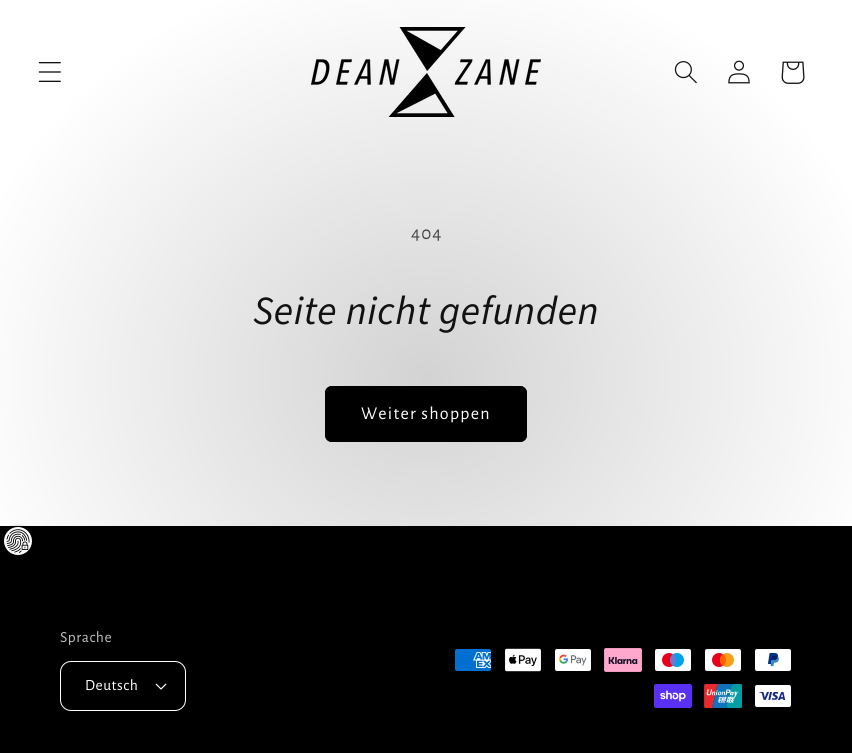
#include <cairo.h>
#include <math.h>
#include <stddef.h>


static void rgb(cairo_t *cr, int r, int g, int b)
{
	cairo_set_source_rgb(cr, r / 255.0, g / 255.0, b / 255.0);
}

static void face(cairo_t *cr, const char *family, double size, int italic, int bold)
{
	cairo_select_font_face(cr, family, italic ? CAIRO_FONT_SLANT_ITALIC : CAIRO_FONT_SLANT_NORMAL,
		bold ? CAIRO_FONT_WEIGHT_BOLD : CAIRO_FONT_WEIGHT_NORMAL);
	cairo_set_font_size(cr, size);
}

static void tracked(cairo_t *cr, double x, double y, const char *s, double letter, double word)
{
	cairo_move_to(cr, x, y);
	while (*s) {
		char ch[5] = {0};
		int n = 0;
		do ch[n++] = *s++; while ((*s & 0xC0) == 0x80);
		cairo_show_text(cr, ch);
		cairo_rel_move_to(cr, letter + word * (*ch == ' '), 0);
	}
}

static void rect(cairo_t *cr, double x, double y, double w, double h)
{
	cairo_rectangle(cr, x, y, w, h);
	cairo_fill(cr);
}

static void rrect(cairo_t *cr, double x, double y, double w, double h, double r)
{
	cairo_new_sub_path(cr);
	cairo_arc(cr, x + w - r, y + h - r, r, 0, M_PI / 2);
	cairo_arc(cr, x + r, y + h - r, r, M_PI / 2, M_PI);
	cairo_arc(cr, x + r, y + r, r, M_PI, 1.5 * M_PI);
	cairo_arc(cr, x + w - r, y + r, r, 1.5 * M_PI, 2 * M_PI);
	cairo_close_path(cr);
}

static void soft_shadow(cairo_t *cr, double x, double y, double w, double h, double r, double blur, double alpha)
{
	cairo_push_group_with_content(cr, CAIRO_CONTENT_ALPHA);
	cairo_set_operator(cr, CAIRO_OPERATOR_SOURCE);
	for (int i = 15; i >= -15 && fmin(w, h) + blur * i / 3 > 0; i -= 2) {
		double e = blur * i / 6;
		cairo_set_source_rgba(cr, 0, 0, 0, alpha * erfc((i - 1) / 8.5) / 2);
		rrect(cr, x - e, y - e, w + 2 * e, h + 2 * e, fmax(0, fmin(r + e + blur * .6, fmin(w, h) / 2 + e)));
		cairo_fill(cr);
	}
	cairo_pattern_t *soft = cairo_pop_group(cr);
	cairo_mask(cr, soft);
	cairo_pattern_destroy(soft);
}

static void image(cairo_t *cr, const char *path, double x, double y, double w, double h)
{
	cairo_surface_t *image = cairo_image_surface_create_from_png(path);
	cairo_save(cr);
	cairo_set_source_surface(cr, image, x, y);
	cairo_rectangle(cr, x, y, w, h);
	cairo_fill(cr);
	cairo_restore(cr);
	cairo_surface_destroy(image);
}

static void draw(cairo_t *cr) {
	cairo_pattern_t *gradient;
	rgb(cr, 255, 255, 255);
	cairo_paint(cr);
	gradient = cairo_pattern_create_radial(0, 0, 0, 0, 0, 1);
	cairo_pattern_set_matrix(gradient, &(cairo_matrix_t){1.0 / 602, 0, 0, 1.0 / 532, -1.0 * 426 / 602, -1.0 * 377 / 532});
	cairo_pattern_add_color_stop_rgba(gradient, 0, 0.827, 0.827, 0.827, 1);
	cairo_pattern_add_color_stop_rgba(gradient, 0.79, 1, 1, 1, 1);
	cairo_pattern_add_color_stop_rgba(gradient, 0.97, 1, 1, 1, 1);
	cairo_set_source(cr, gradient);
	cairo_pattern_destroy(gradient);
	rect(cr, 0, 0, 852, 526);
	image(cr, "image0.png", 38, 62, 23, 20);
	image(cr, "image1.png", 311, 27, 230, 90);
	image(cr, "image2.png", 674, 61, 23, 23);
	image(cr, "image3.png", 728, 60, 22, 24);
	image(cr, "image4.png", 781, 61, 24, 23);
	face(cr, "Alegreya Sans", 19, 0, 0);
	rgb(cr, 70, 70, 70);
	tracked(cr, 411, 239, "404", 1, 0);
	face(cr, "Source Sans Pro", 40, 1, 0);
	rgb(cr, 18, 18, 18);
	tracked(cr, 253, 324, "Seite nicht gefunden", 0.6, 0);
	rgb(cr, 0, 0, 0);
	rrect(cr, 325, 386, 202, 56, 7);
	cairo_fill(cr);
	rrect(cr, 325.5, 386.5, 201, 55, 6.5);
	cairo_set_line_width(cr, 1);
	cairo_stroke(cr);
	face(cr, "Alegreya Sans", 18, 0, 0);
	rgb(cr, 255, 255, 255);
	tracked(cr, 361, 419, "Weiter shoppen", 1.25, 0);
	rgb(cr, 0, 0, 0);
	rect(cr, 0, 526, 852, 227);
	rgb(cr, 0, 0, 0);
	soft_shadow(cr, 4, 527, 28, 28, 14, 2, 0.4);
	rgb(cr, 255, 255, 255);
	cairo_arc(cr, 18, 541, 14, 0, 2 * M_PI);
	cairo_fill(cr);
	image(cr, "image5.png", 6, 529, 24, 24);
	face(cr, "Alegreya Sans", 15.5, 0, 0);
	rgb(cr, 191, 191, 191);
	tracked(cr, 60, 642, "Sprache", 0.5, 0);
	image(cr, "image6.png", 155, 683, 12, 7);
	rrect(cr, 60.5, 661.5, 125, 49, 10.5);
	rgb(cr, 255, 255, 255);
	cairo_stroke(cr);
	tracked(cr, 85, 690, "Deutsch", 0.5, 0);
	image(cr, "image7.png", 455, 649, 36, 22);
	image(cr, "image8.png", 505, 648, 36, 24);
	image(cr, "image9.png", 555, 649, 36, 22);
	image(cr, "image10.png", 604, 648, 38, 24);
	image(cr, "image11.png", 655, 649, 36, 22);
	image(cr, "image12.png", 705, 649, 36, 22);
	image(cr, "image13.png", 755, 649, 36, 22);
	image(cr, "image14.png", 654, 684, 38, 24);
	image(cr, "image15.png", 704, 684, 38, 24);
	image(cr, "image16.png", 755, 685, 36, 22);
}

int main(void) {
	cairo_surface_t *surface = cairo_image_surface_create(CAIRO_FORMAT_RGB24, 852, 753);
	cairo_t *cr = cairo_create(surface);
	cairo_font_options_t *options = cairo_font_options_create();
	cairo_font_options_set_hint_metrics(options, CAIRO_HINT_METRICS_OFF);
	cairo_font_options_set_hint_style(options, CAIRO_HINT_STYLE_NONE);
	cairo_set_font_options(cr, options);
	cairo_set_miter_limit(cr, 4);
	draw(cr);
	cairo_surface_write_to_png(surface, "render.png");
	cairo_font_options_destroy(options);
	cairo_destroy(cr);
	cairo_surface_destroy(surface);
	return 0;
}
